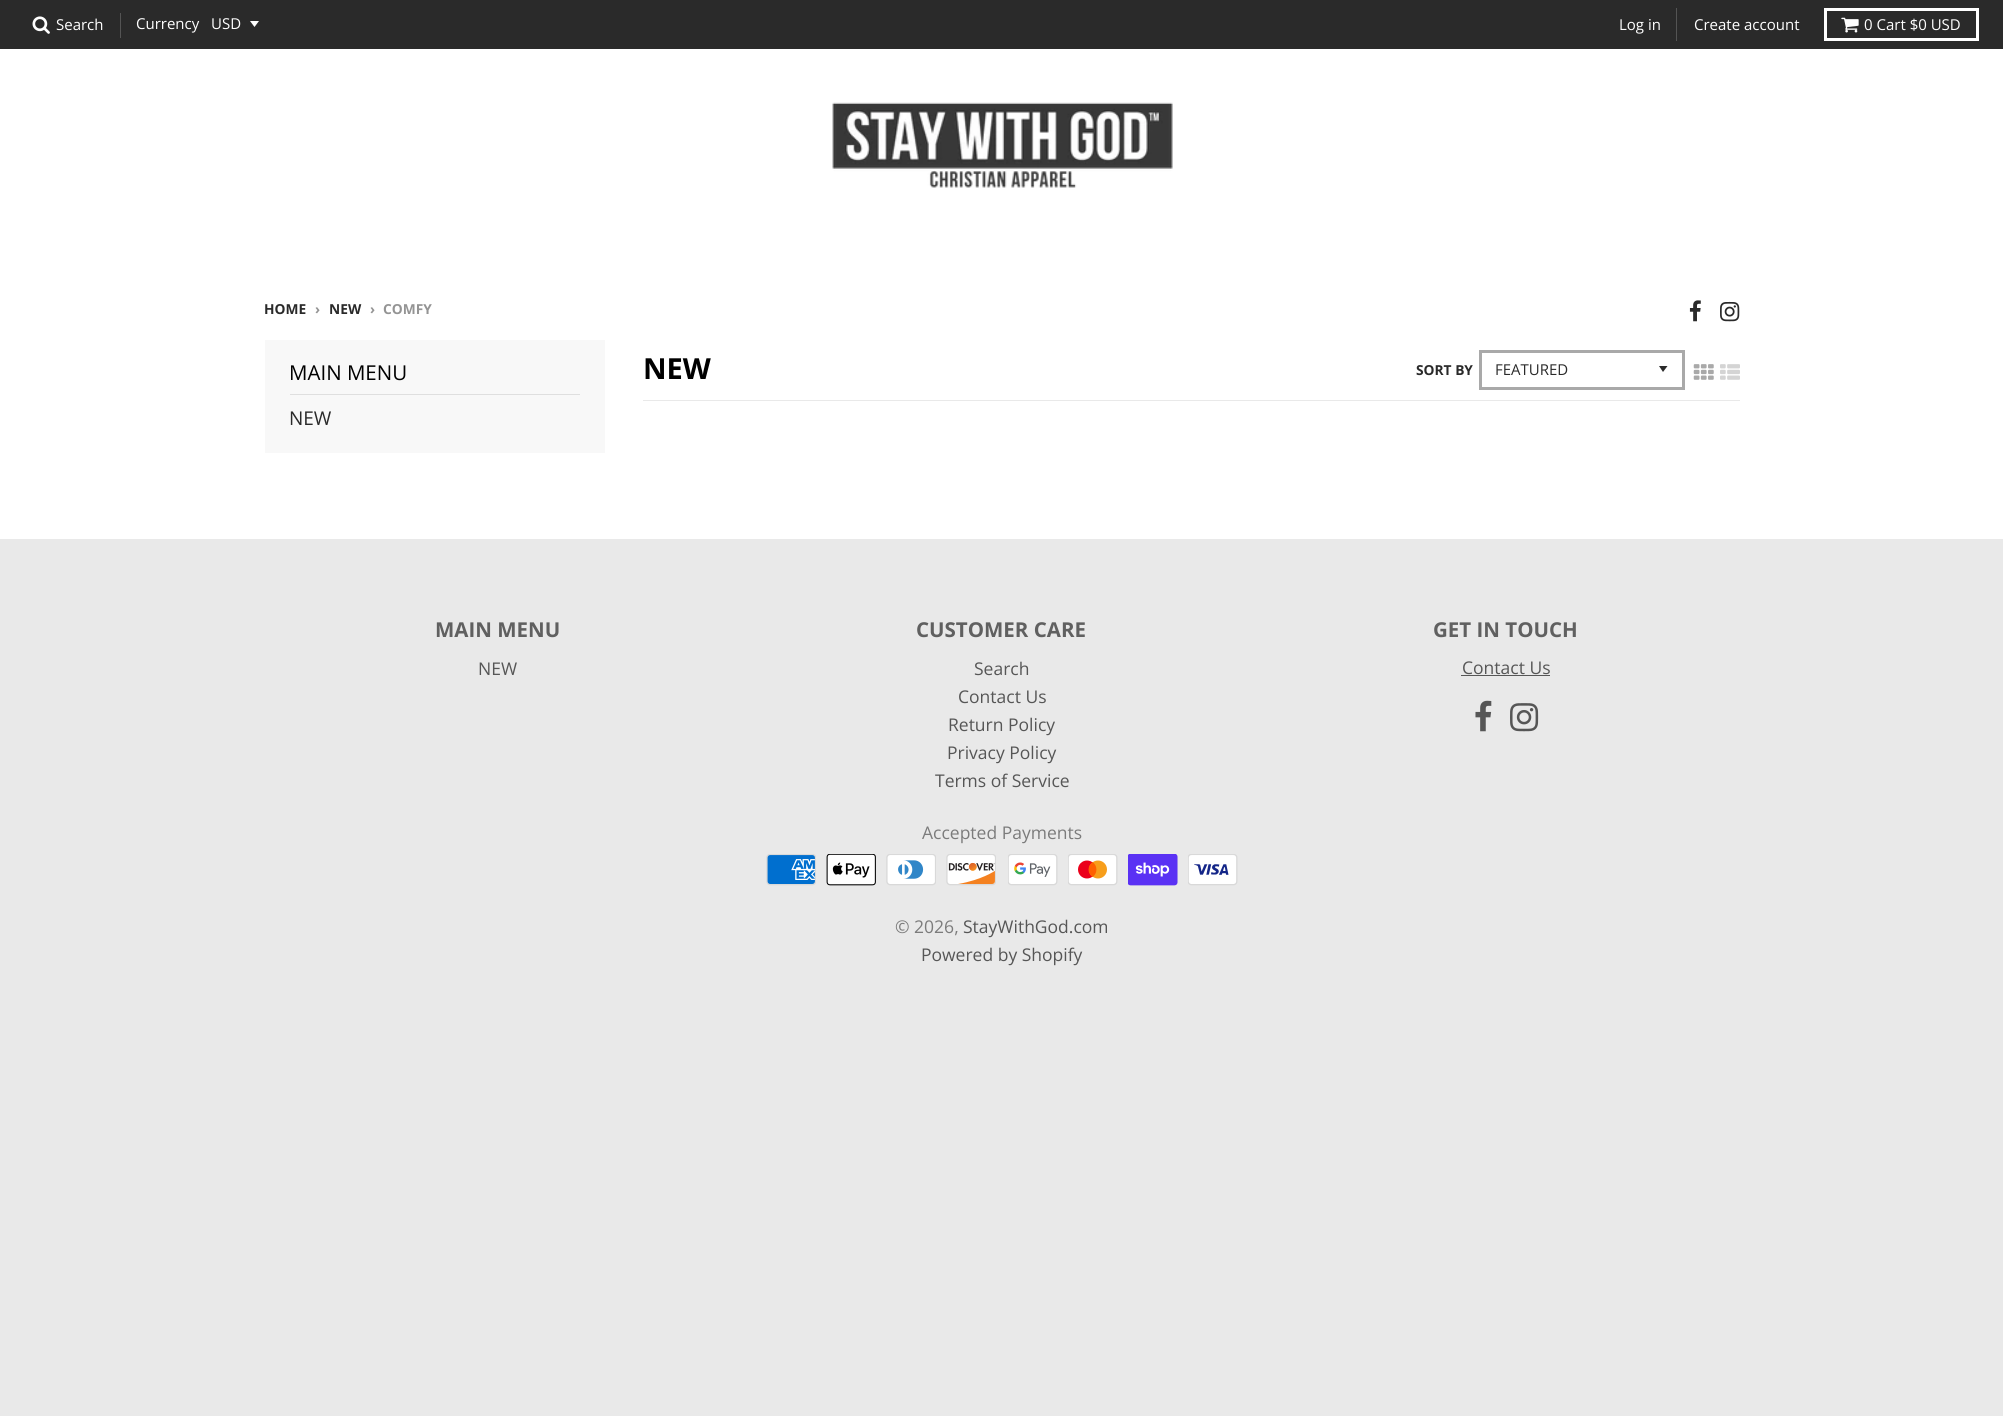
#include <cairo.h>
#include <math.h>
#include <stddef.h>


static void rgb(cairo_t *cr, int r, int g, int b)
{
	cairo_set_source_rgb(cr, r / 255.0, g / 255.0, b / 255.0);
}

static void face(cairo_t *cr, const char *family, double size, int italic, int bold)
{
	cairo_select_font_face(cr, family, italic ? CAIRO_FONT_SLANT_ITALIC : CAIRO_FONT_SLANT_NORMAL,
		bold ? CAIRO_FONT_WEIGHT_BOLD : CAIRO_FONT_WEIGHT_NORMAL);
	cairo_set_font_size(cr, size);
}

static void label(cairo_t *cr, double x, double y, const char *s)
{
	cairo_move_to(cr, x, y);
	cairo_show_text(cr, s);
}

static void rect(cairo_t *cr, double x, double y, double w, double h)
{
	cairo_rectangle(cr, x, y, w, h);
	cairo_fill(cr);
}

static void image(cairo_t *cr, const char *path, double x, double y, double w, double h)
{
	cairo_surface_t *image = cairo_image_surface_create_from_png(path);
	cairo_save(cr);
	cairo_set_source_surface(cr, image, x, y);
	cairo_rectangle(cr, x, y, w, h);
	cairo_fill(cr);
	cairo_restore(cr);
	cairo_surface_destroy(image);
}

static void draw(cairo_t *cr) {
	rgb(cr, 233, 233, 233);
	cairo_paint(cr);
	rgb(cr, 255, 255, 255);
	rect(cr, 0, 49, 2003, 490);
	rgb(cr, 42, 42, 42);
	rect(cr, 0, 0, 2003, 49);
	image(cr, "image0.png", 32, 16, 18, 18);
	face(cr, "Open Sans", 15, 0, 0);
	rgb(cr, 255, 255, 255);
	label(cr, 56, 30, "Search");
	rgb(cr, 84, 84, 84);
	rect(cr, 120, 13, 1, 25);
	rgb(cr, 255, 255, 255);
	label(cr, 136, 29, "Currency");
	cairo_new_path(cr);
	cairo_move_to(cr, 250, 21);
	cairo_line_to(cr, 254.5, 27);
	cairo_line_to(cr, 259, 21);
	cairo_close_path(cr);
	cairo_fill(cr);
	label(cr, 211, 29, "USD");
	rgb(cr, 84, 84, 84);
	rect(cr, 1676, 8, 1, 33);
	rgb(cr, 255, 255, 255);
	label(cr, 1619, 30, "Log in");
	label(cr, 1694, 30, "Create account");
	cairo_rectangle(cr, 1825.5, 9.5, 152, 30);
	cairo_set_line_width(cr, 3);
	cairo_stroke(cr);
	image(cr, "image1.png", 1841, 17, 18, 16);
	label(cr, 1864, 30, "0 Cart $0 USD");
	image(cr, "image2.png", 832, 102, 341, 86);
	face(cr, "Open Sans", 13.75, 0, 1);
	rgb(cr, 42, 42, 42);
	label(cr, 264, 314, "HOME");
	rgb(cr, 148, 148, 148);
	label(cr, 315, 314, "›");
	rgb(cr, 42, 42, 42);
	label(cr, 329, 314, "NEW");
	rgb(cr, 148, 148, 148);
	label(cr, 370, 314, "›");
	label(cr, 383, 314, "COMFY");
	image(cr, "image3.png", 1689, 300, 12, 22);
	image(cr, "image4.png", 1720, 301, 20, 21);
	rgb(cr, 248, 248, 248);
	rect(cr, 265, 340, 340, 113);
	rgb(cr, 223, 223, 223);
	rect(cr, 290, 394, 290, 1);
	face(cr, "Open Sans", 20.5, 0, 0);
	rgb(cr, 0, 0, 0);
	label(cr, 289, 380, "MAIN MENU");
	face(cr, "Open Sans", 19, 0, 0);
	rgb(cr, 42, 42, 42);
	label(cr, 289, 425, "NEW");
	rgb(cr, 233, 233, 233);
	rect(cr, 643, 400, 1097, 1);
	face(cr, "Open Sans", 29, 0, 1);
	rgb(cr, 0, 0, 0);
	label(cr, 643, 379, "NEW");
	face(cr, "Open Sans", 13.75, 0, 1);
	rgb(cr, 42, 42, 42);
	label(cr, 1416, 375, "SORT BY");
	cairo_new_path(cr);
	cairo_move_to(cr, 1659, 366);
	cairo_line_to(cr, 1663, 372);
	cairo_line_to(cr, 1667.5, 366);
	cairo_close_path(cr);
	cairo_fill(cr);
	cairo_rectangle(cr, 1480.5, 351.5, 203, 37);
	rgb(cr, 169, 169, 169);
	cairo_stroke(cr);
	face(cr, "Open Sans", 15, 0, 0);
	rgb(cr, 42, 42, 42);
	label(cr, 1495, 375, "FEATURED");
	image(cr, "image5.png", 1693, 364, 21, 16);
	image(cr, "image6.png", 1720, 364, 20, 16);
	face(cr, "Open Sans", 20.5, 0, 1);
	rgb(cr, 96, 96, 96);
	label(cr, 435, 637, "MAIN MENU");
	face(cr, "Open Sans", 17.5, 0, 0);
	rgb(cr, 86, 86, 86);
	label(cr, 478, 675, "NEW");
	face(cr, "Open Sans", 20.5, 0, 1);
	rgb(cr, 96, 96, 96);
	label(cr, 916, 637, "CUSTOMER CARE");
	face(cr, "Open Sans", 17.5, 0, 0);
	rgb(cr, 86, 86, 86);
	label(cr, 974, 675, "Search");
	label(cr, 958, 703, "Contact Us");
	label(cr, 948, 731, "Return Policy");
	label(cr, 947, 759, "Privacy Policy");
	label(cr, 935, 787, "Terms of Service");
	face(cr, "Open Sans", 20.5, 0, 1);
	rgb(cr, 96, 96, 96);
	label(cr, 1433, 637, "GET IN TOUCH");
	face(cr, "Open Sans", 17.5, 0, 0);
	rgb(cr, 86, 86, 86);
	label(cr, 1462, 674, "Contact Us");
	rect(cr, 1461, 675, 89, 1);
	image(cr, "image7.png", 1475, 700, 17, 32);
	image(cr, "image8.png", 1510, 703, 29, 29);
	rgb(cr, 123, 123, 123);
	label(cr, 922, 839, "Accepted Payments");
	image(cr, "image9.png", 766, 854, 50, 32);
	image(cr, "image10.png", 826, 854, 50, 32);
	image(cr, "image11.png", 886, 854, 50, 32);
	image(cr, "image12.png", 946, 854, 50, 32);
	image(cr, "image13.png", 1008, 854, 50, 32);
	image(cr, "image14.png", 1068, 854, 50, 32);
	image(cr, "image15.png", 1128, 854, 50, 32);
	image(cr, "image16.png", 1188, 854, 50, 32);
	label(cr, 895, 933, "© 2026,");
	rgb(cr, 86, 86, 86);
	label(cr, 963, 933, "StayWithGod.com");
	label(cr, 921, 961, "Powered by Shopify");
}

int main(void) {
	cairo_surface_t *surface = cairo_image_surface_create(CAIRO_FORMAT_RGB24, 2003, 1416);
	cairo_t *cr = cairo_create(surface);
	cairo_font_options_t *options = cairo_font_options_create();
	cairo_font_options_set_hint_metrics(options, CAIRO_HINT_METRICS_OFF);
	cairo_font_options_set_hint_style(options, CAIRO_HINT_STYLE_NONE);
	cairo_set_font_options(cr, options);
	cairo_set_miter_limit(cr, 4);
	draw(cr);
	cairo_surface_write_to_png(surface, "render.png");
	cairo_font_options_destroy(options);
	cairo_destroy(cr);
	cairo_surface_destroy(surface);
	return 0;
}
